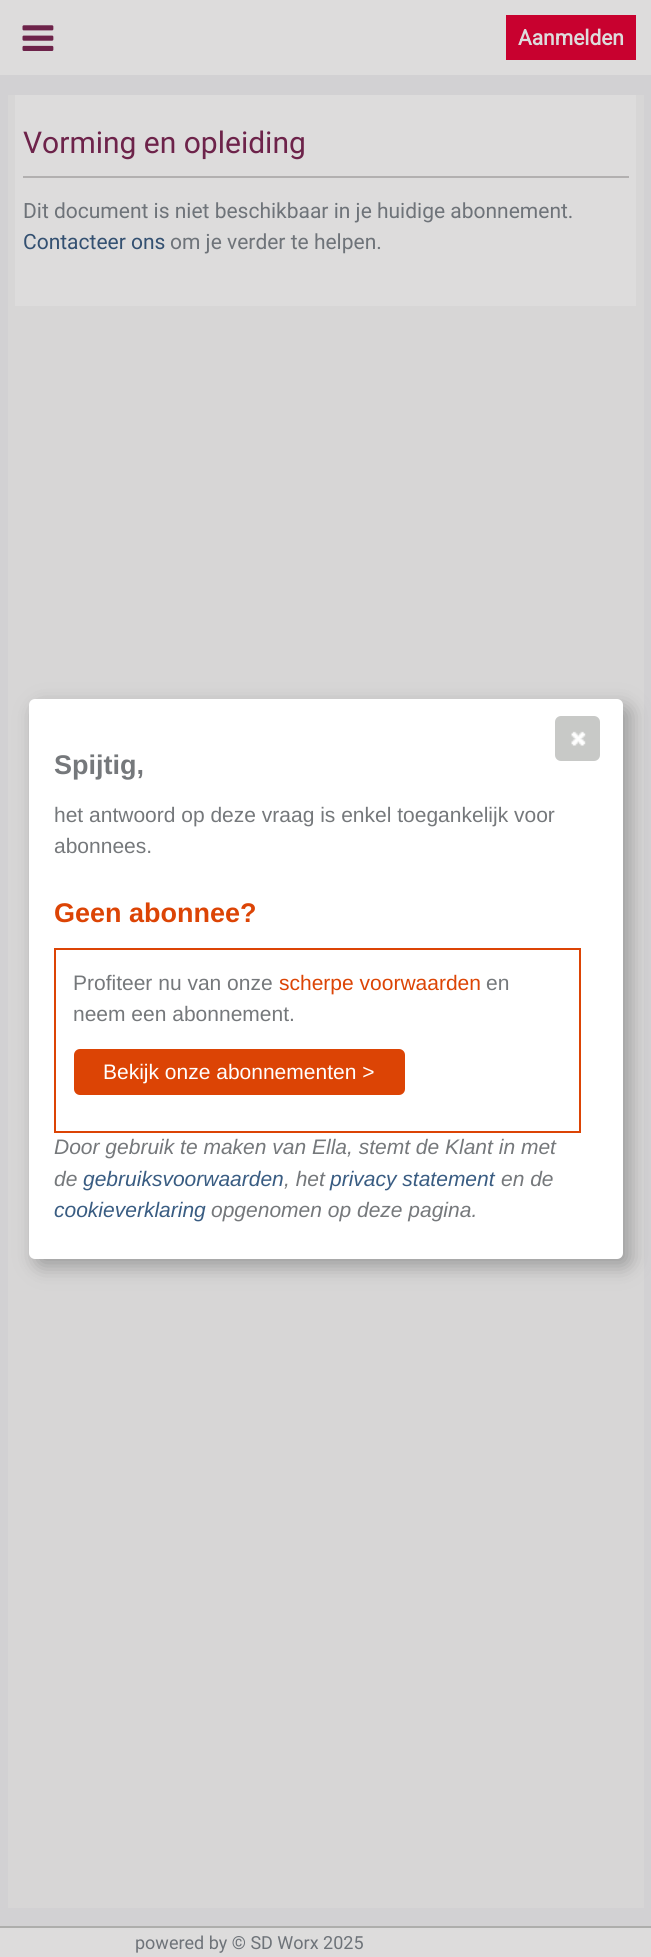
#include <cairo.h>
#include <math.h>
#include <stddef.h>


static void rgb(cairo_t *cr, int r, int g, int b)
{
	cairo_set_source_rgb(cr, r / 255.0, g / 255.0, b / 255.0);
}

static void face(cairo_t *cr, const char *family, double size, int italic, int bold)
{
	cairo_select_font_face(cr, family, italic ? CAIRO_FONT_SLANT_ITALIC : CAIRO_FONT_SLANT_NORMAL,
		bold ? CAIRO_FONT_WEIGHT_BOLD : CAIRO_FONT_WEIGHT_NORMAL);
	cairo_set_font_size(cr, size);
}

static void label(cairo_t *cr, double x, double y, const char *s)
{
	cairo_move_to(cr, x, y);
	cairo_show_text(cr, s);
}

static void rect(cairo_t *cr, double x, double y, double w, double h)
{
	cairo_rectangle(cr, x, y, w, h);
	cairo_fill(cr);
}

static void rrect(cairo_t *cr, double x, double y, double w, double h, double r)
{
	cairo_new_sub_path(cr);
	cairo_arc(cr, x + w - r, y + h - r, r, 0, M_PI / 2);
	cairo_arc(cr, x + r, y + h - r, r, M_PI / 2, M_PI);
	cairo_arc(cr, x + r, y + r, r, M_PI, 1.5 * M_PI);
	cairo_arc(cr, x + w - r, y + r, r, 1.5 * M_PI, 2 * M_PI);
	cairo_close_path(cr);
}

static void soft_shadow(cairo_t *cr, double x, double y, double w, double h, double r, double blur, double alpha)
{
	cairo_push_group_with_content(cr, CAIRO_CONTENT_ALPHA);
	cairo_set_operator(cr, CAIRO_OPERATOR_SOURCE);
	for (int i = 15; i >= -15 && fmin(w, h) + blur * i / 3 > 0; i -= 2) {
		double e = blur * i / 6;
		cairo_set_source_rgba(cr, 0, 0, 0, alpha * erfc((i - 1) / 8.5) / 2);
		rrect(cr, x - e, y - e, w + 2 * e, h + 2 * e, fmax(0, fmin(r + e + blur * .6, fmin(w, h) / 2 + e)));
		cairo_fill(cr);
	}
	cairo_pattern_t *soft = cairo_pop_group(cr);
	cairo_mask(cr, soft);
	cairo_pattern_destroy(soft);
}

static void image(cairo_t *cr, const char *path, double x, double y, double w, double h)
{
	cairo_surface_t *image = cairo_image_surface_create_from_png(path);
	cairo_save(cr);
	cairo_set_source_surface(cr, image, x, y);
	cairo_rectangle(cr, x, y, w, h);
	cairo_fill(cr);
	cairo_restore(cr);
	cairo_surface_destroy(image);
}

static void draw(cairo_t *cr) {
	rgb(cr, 221, 220, 220);
	cairo_paint(cr);
	image(cr, "image0.png", 22, 25, 32, 26);
	rgb(cr, 200, 1, 47);
	rect(cr, 506, 15, 130, 45);
	face(cr, "Roboto", 21, 0, 1);
	rgb(cr, 221, 220, 220);
	label(cr, 518, 45, "Aanmelden");
	rgb(cr, 210, 209, 211);
	rect(cr, 0, 75, 651, 1851);
	rgb(cr, 215, 214, 214);
	rect(cr, 8, 95, 636, 1813);
	rgb(cr, 221, 220, 220);
	rect(cr, 15, 95, 621, 211);
	rgb(cr, 178, 176, 176);
	rect(cr, 23, 176, 606, 2);
	face(cr, "Roboto", 30, 0, 0);
	rgb(cr, 109, 35, 74);
	label(cr, 23, 153, "Vorming en opleiding");
	face(cr, "Roboto", 21, 0, 0);
	rgb(cr, 110, 115, 121);
	label(cr, 23, 218, "Dit document is niet beschikbaar in je huidige abonnement.");
	rgb(cr, 51, 80, 113);
	label(cr, 23, 249, "Contacteer ons");
	rgb(cr, 110, 115, 121);
	label(cr, 170, 249, "om je verder te helpen.");
	rgb(cr, 153, 153, 153);
	soft_shadow(cr, 36, 707, 594, 559, 6, 10, 1);
	rgb(cr, 255, 255, 255);
	rrect(cr, 29, 699, 594, 560, 6);
	cairo_fill(cr);
	rgb(cr, 200, 201, 199);
	rrect(cr, 556, 717, 43, 43, 5);
	cairo_fill_preserve(cr);
	cairo_stroke(cr);
	image(cr, "image1.png", 571, 731, 15, 15);
	face(cr, "Liberation Sans", 27, 0, 1);
	rgb(cr, 117, 120, 123);
	label(cr, 54, 774, "Spijtig,");
	face(cr, "Liberation Sans", 21, 0, 0);
	label(cr, 54, 822, "het antwoord op deze vraag is enkel toegankelijk voor");
	label(cr, 54, 853, "abonnees.");
	face(cr, "Liberation Sans", 27, 0, 1);
	rgb(cr, 220, 68, 5);
	label(cr, 54, 922, "Geen abonnee?");
	cairo_rectangle(cr, 55, 949, 525, 183);
	cairo_stroke(cr);
	face(cr, "Liberation Sans", 21, 0, 0);
	rgb(cr, 117, 120, 123);
	label(cr, 73, 990, "Profiteer nu van onze");
	rgb(cr, 220, 68, 5);
	label(cr, 279, 990, "scherpe voorwaarden");
	rgb(cr, 117, 120, 123);
	label(cr, 486, 990, "en");
	label(cr, 73, 1021, "neem een abonnement.");
	rgb(cr, 220, 68, 5);
	rrect(cr, 75, 1050, 329, 44, 5);
	cairo_fill_preserve(cr);
	cairo_stroke(cr);
	rgb(cr, 255, 255, 255);
	label(cr, 103, 1079, "Bekijk onze abonnementen >");
	face(cr, "Liberation Sans", 21, 1, 0);
	rgb(cr, 117, 120, 123);
	label(cr, 54, 1154, "Door gebruik te maken van Ella, stemt de Klant in met");
	label(cr, 54, 1186, "de");
	rgb(cr, 57, 92, 130);
	label(cr, 83, 1186, "gebruiksvoorwaarden");
	rgb(cr, 117, 120, 123);
	label(cr, 284, 1186, ", het");
	rgb(cr, 57, 92, 130);
	label(cr, 330, 1186, "privacy statement");
	rgb(cr, 117, 120, 123);
	label(cr, 501, 1186, "en de");
	rgb(cr, 57, 92, 130);
	label(cr, 54, 1217, "cookieverklaring");
	rgb(cr, 117, 120, 123);
	label(cr, 211, 1217, "opgenomen op deze pagina.");
	rgb(cr, 174, 174, 172);
	rect(cr, 0, 1926, 651, 2);
	face(cr, "Roboto", 18, 0, 0);
	rgb(cr, 110, 115, 121);
	label(cr, 135, 1949, "powered by © SD Worx 2025");
}

int main(void) {
	cairo_surface_t *surface = cairo_image_surface_create(CAIRO_FORMAT_RGB24, 651, 1957);
	cairo_t *cr = cairo_create(surface);
	cairo_font_options_t *options = cairo_font_options_create();
	cairo_font_options_set_hint_metrics(options, CAIRO_HINT_METRICS_OFF);
	cairo_font_options_set_hint_style(options, CAIRO_HINT_STYLE_NONE);
	cairo_set_font_options(cr, options);
	cairo_set_miter_limit(cr, 4);
	draw(cr);
	cairo_surface_write_to_png(surface, "render.png");
	cairo_font_options_destroy(options);
	cairo_destroy(cr);
	cairo_surface_destroy(surface);
	return 0;
}
